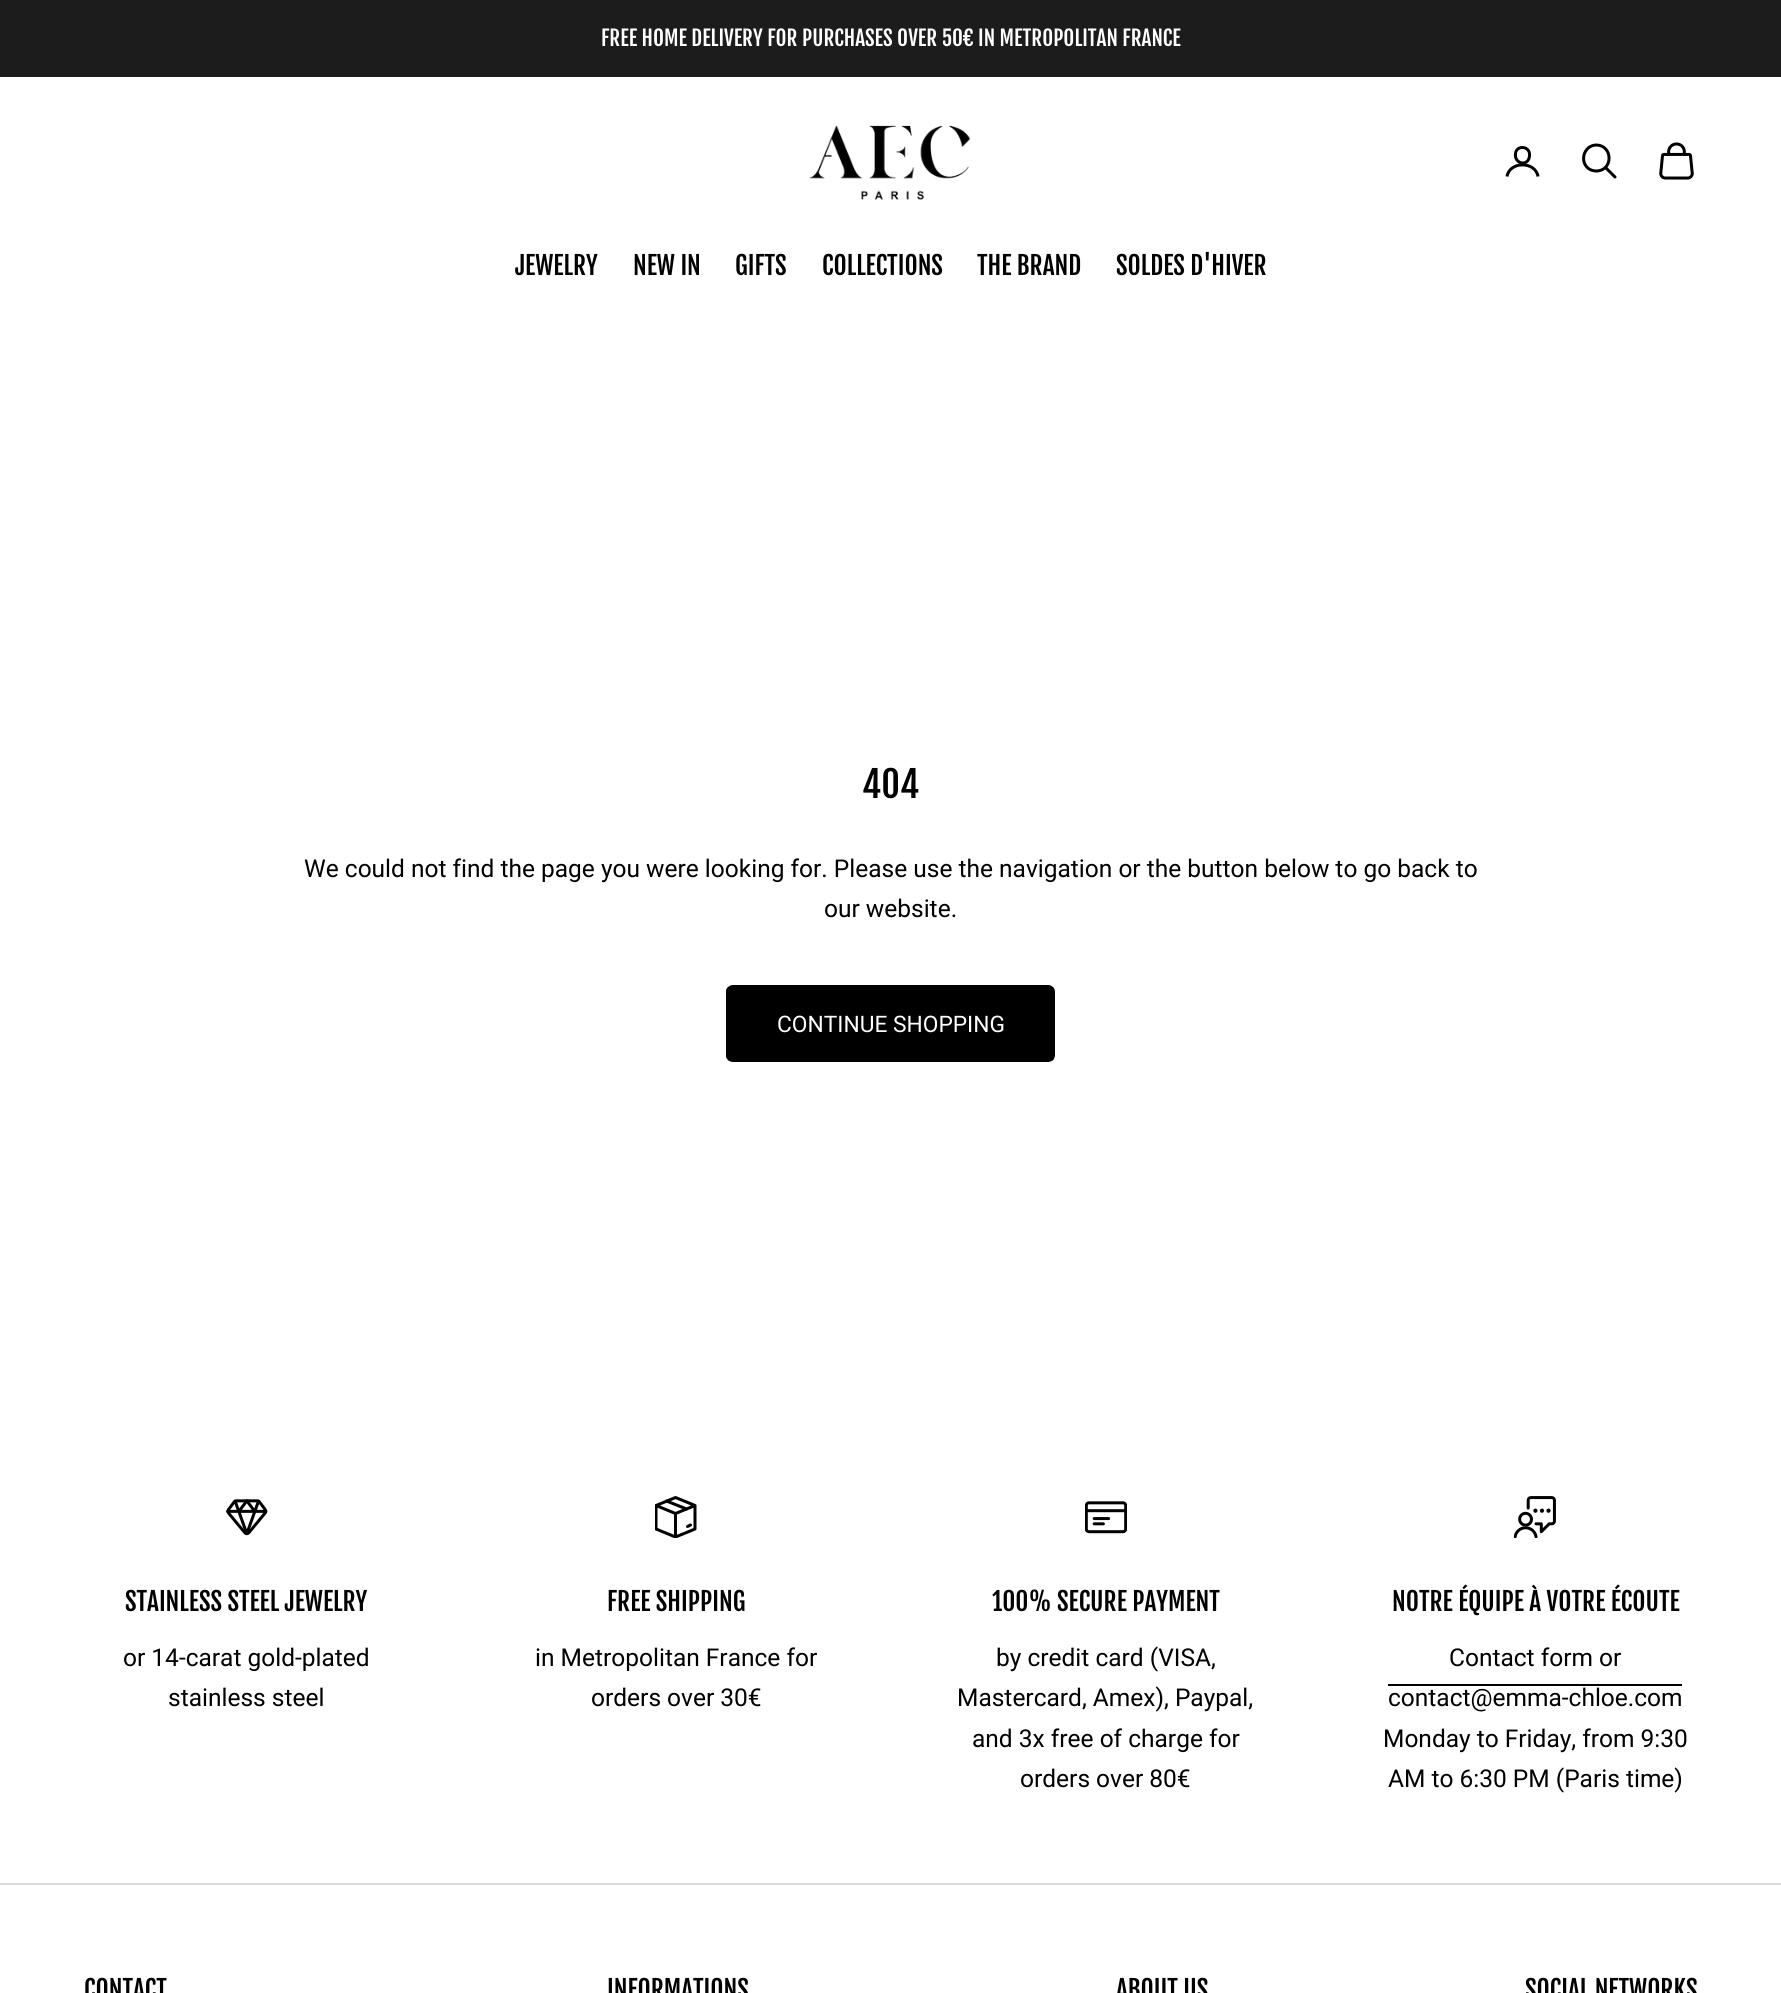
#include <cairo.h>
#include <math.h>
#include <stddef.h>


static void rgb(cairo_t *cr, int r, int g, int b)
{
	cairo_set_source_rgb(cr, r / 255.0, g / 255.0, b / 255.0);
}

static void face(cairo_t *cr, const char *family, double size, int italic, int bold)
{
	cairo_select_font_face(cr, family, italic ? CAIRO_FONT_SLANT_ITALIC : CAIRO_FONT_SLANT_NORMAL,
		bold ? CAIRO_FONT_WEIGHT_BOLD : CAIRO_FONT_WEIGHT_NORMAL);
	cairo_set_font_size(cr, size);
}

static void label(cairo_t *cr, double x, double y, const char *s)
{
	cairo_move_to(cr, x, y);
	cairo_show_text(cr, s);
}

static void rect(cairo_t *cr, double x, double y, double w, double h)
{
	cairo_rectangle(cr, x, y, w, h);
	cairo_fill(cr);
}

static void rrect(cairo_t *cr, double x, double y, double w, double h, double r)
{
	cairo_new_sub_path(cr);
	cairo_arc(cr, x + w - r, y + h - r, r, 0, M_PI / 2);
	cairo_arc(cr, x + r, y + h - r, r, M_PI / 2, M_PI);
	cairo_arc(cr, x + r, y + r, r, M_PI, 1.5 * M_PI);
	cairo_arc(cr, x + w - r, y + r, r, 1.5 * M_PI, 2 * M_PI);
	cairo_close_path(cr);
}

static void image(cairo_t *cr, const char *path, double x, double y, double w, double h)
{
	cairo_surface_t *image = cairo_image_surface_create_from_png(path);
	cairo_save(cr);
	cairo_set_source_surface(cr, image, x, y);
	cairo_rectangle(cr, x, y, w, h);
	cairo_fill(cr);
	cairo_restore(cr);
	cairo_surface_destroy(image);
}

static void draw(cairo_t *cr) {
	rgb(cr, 255, 255, 255);
	cairo_paint(cr);
	rgb(cr, 28, 28, 28);
	rect(cr, 0, 0, 1781, 77);
	face(cr, "Fjalla One", 21, 0, 0);
	rgb(cr, 255, 255, 255);
	label(cr, 601, 46, "FREE HOME DELIVERY FOR PURCHASES OVER 50€ IN METROPOLITAN FRANCE");
	image(cr, "image0.png", 809, 125, 162, 75);
	cairo_new_path(cr);
	cairo_move_to(cr, 1529.5, 155.5);
	cairo_curve_to(cr, 1529, 167, 1514, 164.5, 1515.5, 153.5);
	cairo_curve_to(cr, 1516.5, 144.5, 1530.5, 146, 1529.5, 155.5);
	cairo_close_path(cr);
	rgb(cr, 0, 0, 0);
	cairo_set_line_width(cr, 3);
	cairo_set_line_cap(cr, CAIRO_LINE_CAP_ROUND);
	cairo_set_line_join(cr, CAIRO_LINE_JOIN_ROUND);
	cairo_stroke(cr);
	cairo_new_path(cr);
	cairo_move_to(cr, 1507, 176.5);
	cairo_curve_to(cr, 1509.5, 161, 1535.5, 161, 1538, 176.5);
	cairo_set_line_cap(cr, CAIRO_LINE_CAP_BUTT);
	cairo_set_line_join(cr, CAIRO_LINE_JOIN_MITER);
	cairo_stroke(cr);
	cairo_new_path(cr);
	cairo_move_to(cr, 1596.5, 145);
	cairo_curve_to(cr, 1583.5, 145, 1578.5, 163, 1590, 169.5);
	cairo_curve_to(cr, 1592, 170.5, 1594.5, 171, 1596.5, 171);
	cairo_curve_to(cr, 1613.5, 170.5, 1613, 145.5, 1596.5, 145);
	cairo_close_path(cr);
	cairo_stroke(cr);
	cairo_new_path(cr);
	cairo_move_to(cr, 1606, 168);
	cairo_line_to(cr, 1615, 177);
	cairo_set_line_cap(cr, CAIRO_LINE_CAP_ROUND);
	cairo_stroke(cr);
	image(cr, "image1.png", 1659, 142, 35, 38);
	face(cr, "Fjalla One", 25.25, 0, 0);
	label(cr, 515, 275, "JEWELRY");
	label(cr, 633, 275, "NEW IN");
	label(cr, 735, 275, "GIFTS");
	label(cr, 822, 275, "COLLECTIONS");
	label(cr, 977, 275, "THE BRAND");
	label(cr, 1116, 275, "SOLDES D'HIVER");
	face(cr, "Fjalla One", 36, 0, 0);
	label(cr, 862, 798, "404");
	face(cr, "Roboto", 24.5, 0, 0);
	label(cr, 304, 877, "We could not find the page you were looking for. Please use the navigation or the button below to go back to");
	label(cr, 824, 917, "our website.");
	cairo_save(cr);
	rrect(cr, 726, 985, 329, 77, 7);
	cairo_clip(cr);
	rect(cr, 726, 987, 328, 74);
	cairo_restore(cr);
	rrect(cr, 727, 986, 327, 75, 6);
	cairo_set_line_width(cr, 2);
	cairo_set_line_cap(cr, CAIRO_LINE_CAP_BUTT);
	cairo_stroke(cr);
	face(cr, "Roboto", 22.75, 0, 0);
	rgb(cr, 255, 255, 255);
	label(cr, 777, 1032, "CONTINUE SHOPPING");
	image(cr, "image2.png", 226, 1499, 42, 37);
	face(cr, "Fjalla One", 25.25, 0, 0);
	rgb(cr, 0, 0, 0);
	label(cr, 125, 1611, "STAINLESS STEEL JEWELRY");
	face(cr, "Roboto", 24.5, 0, 0);
	label(cr, 123, 1666, "or 14-carat gold-plated");
	label(cr, 168, 1706, "stainless steel");
	cairo_save(cr);
	cairo_rectangle(cr, 655, 1496, 42, 42);
	cairo_clip(cr);
	cairo_new_path(cr);
	cairo_move_to(cr, 656, 1505.5);
	cairo_line_to(cr, 675.5, 1513.5);
	cairo_line_to(cr, 695, 1505.5);
	cairo_line_to(cr, 675.5, 1497.5);
	cairo_close_path(cr);
	cairo_move_to(cr, 656, 1505.5);
	cairo_line_to(cr, 656, 1529);
	cairo_line_to(cr, 675.5, 1537);
	cairo_line_to(cr, 675.5, 1513.5);
	cairo_close_path(cr);
	cairo_move_to(cr, 695, 1505.5);
	cairo_line_to(cr, 695, 1529);
	cairo_line_to(cr, 675.5, 1537);
	cairo_line_to(cr, 675.5, 1513.5);
	cairo_close_path(cr);
	cairo_set_line_width(cr, 3);
	cairo_set_line_cap(cr, CAIRO_LINE_CAP_ROUND);
	cairo_set_line_join(cr, CAIRO_LINE_JOIN_ROUND);
	cairo_stroke(cr);
	cairo_restore(cr);
	cairo_new_path(cr);
	cairo_move_to(cr, 686.5, 1509);
	cairo_line_to(cr, 666.5, 1501);
	cairo_move_to(cr, 690.5, 1525);
	cairo_line_to(cr, 687.5, 1526.5);
	cairo_set_line_width(cr, 3);
	cairo_set_line_cap(cr, CAIRO_LINE_CAP_ROUND);
	cairo_set_line_join(cr, CAIRO_LINE_JOIN_ROUND);
	cairo_stroke(cr);
	face(cr, "Fjalla One", 25.25, 0, 0);
	label(cr, 607, 1611, "FREE SHIPPING");
	face(cr, "Roboto", 24.5, 0, 0);
	label(cr, 535, 1666, "in Metropolitan France for");
	label(cr, 591, 1706, "orders over 30€");
	image(cr, "image3.png", 1085, 1501, 42, 33);
	face(cr, "Fjalla One", 25.25, 0, 0);
	label(cr, 992, 1611, "100% SECURE PAYMENT");
	face(cr, "Roboto", 24.5, 0, 0);
	label(cr, 996, 1666, "by credit card (VISA,");
	label(cr, 957, 1706, "Mastercard, Amex), Paypal,");
	label(cr, 972, 1747, "and 3x free of charge for");
	label(cr, 1020, 1787, "orders over 80€");
	image(cr, "image4.png", 1514, 1496, 42, 42);
	face(cr, "Fjalla One", 25.25, 0, 0);
	label(cr, 1392, 1611, "NOTRE ÉQUIPE À VOTRE ÉCOUTE");
	face(cr, "Roboto", 24.5, 0, 0);
	label(cr, 1449, 1666, "Contact form or");
	label(cr, 1388, 1706, "contact@emma-chloe.com");
	rect(cr, 1388, 1684, 294, 2);
	label(cr, 1383, 1747, "Monday to Friday, from 9:30");
	label(cr, 1388, 1787, "AM to 6:30 PM (Paris time)");
	rgb(cr, 217, 217, 217);
	rect(cr, 0, 1883, 1781, 2);
	face(cr, "Fjalla One", 25.25, 0, 0);
	rgb(cr, 0, 0, 0);
	label(cr, 84, 1999, "CONTACT");
	label(cr, 607, 1999, "INFORMATIONS");
	label(cr, 1116, 1999, "ABOUT US");
	label(cr, 1525, 1999, "SOCIAL NETWORKS");
}

int main(void) {
	cairo_surface_t *surface = cairo_image_surface_create(CAIRO_FORMAT_RGB24, 1781, 1993);
	cairo_t *cr = cairo_create(surface);
	cairo_font_options_t *options = cairo_font_options_create();
	cairo_font_options_set_hint_metrics(options, CAIRO_HINT_METRICS_OFF);
	cairo_font_options_set_hint_style(options, CAIRO_HINT_STYLE_NONE);
	cairo_set_font_options(cr, options);
	cairo_set_miter_limit(cr, 4);
	draw(cr);
	cairo_surface_write_to_png(surface, "render.png");
	cairo_font_options_destroy(options);
	cairo_destroy(cr);
	cairo_surface_destroy(surface);
	return 0;
}
